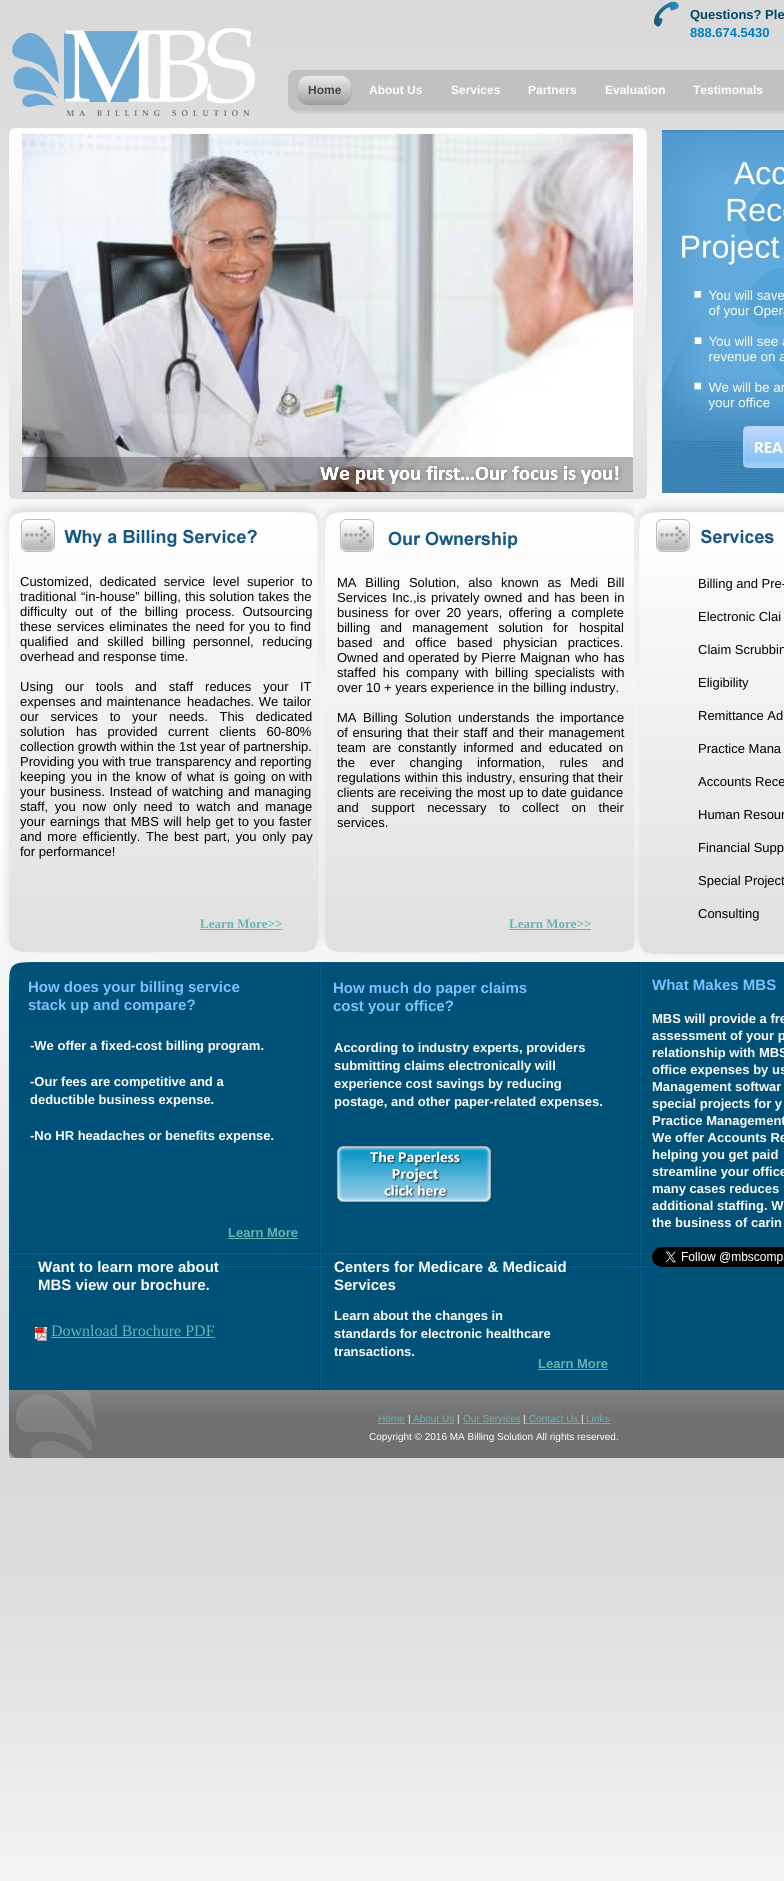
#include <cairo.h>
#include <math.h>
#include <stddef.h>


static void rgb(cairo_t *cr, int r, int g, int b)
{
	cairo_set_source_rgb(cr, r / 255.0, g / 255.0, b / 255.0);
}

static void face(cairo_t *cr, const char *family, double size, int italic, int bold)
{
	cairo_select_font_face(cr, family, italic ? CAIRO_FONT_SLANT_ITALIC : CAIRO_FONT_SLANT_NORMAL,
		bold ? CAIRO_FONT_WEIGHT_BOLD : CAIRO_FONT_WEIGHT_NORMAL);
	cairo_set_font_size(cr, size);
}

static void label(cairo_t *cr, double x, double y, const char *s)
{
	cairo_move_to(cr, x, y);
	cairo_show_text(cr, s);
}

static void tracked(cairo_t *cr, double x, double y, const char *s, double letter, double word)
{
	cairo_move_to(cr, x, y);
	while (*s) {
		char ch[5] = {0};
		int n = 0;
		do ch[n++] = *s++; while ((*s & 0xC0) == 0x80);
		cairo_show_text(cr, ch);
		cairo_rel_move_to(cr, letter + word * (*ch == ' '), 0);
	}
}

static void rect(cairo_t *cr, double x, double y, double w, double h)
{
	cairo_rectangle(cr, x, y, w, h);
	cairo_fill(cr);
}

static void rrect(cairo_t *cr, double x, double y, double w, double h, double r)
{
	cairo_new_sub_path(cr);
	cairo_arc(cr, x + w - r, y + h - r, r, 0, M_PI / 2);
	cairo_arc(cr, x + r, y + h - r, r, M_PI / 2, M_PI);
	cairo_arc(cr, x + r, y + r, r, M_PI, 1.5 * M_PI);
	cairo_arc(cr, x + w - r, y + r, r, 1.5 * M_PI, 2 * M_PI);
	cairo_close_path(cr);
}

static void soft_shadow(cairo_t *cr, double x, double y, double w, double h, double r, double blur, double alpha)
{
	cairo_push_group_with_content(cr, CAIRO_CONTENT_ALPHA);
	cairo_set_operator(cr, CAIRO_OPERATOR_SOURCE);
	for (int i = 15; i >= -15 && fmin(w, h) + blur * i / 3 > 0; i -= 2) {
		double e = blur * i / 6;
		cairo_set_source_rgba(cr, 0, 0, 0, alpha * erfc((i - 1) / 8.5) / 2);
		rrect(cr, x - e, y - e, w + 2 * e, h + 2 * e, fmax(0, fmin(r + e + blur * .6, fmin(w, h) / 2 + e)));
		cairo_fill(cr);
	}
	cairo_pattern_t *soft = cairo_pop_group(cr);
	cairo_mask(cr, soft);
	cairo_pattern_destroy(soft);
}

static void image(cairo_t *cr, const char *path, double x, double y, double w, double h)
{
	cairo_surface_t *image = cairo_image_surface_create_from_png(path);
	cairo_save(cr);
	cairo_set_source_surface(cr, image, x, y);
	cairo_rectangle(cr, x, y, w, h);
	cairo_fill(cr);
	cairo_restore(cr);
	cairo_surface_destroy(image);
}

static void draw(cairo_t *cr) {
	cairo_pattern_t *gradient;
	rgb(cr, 255, 255, 255);
	cairo_paint(cr);
	image(cr, "image0.png", 0, 0, 784, 1881);
	image(cr, "image1.png", 654, 1, 25, 26);
	face(cr, "Liberation Sans", 13, 0, 1);
	rgb(cr, 0, 69, 102);
	label(cr, 690, 19, "Questions? Ple");
	rgb(cr, 0, 128, 192);
	label(cr, 690, 37, "888.674.5430");
	image(cr, "image2.png", 12, 28, 243, 88);
	rgb(cr, 191, 191, 191);
	soft_shadow(cr, 290, 72, 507, 40, 8, 1.5, 1);
	rgb(cr, 193, 193, 193);
	rrect(cr, 288, 70, 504, 40, 8);
	cairo_fill(cr);
	rgb(cr, 0, 0, 0);
	soft_shadow(cr, 298, 77, 53, 28, 10, 0.5, 0.2);
	gradient = cairo_pattern_create_linear(298, 76, 298, 104);
	cairo_pattern_add_color_stop_rgba(gradient, 0, 0.922, 0.922, 0.922, 1);
	cairo_pattern_add_color_stop_rgba(gradient, 1, 0.631, 0.631, 0.631, 1);
	cairo_set_source(cr, gradient);
	cairo_pattern_destroy(gradient);
	rrect(cr, 298, 76, 53, 28, 10);
	cairo_fill(cr);
	face(cr, "Liberation Sans", 12, 0, 1);
	rgb(cr, 68, 68, 68);
	label(cr, 308, 94, "Home");
	rgb(cr, 255, 255, 255);
	label(cr, 369, 94, "About Us");
	label(cr, 451, 94, "Services");
	label(cr, 528, 94, "Partners");
	label(cr, 605, 94, "Evaluation");
	label(cr, 693, 94, "Testimonals");
	image(cr, "image3.png", 8, 128, 640, 372);
	image(cr, "image4.png", 662, 130, 122, 366);
	image(cr, "image5.png", 22, 134, 611, 358);
	image(cr, "image6.png", 742, 426, 42, 43);
	image(cr, "image7.png", 3, 500, 323, 453);
	image(cr, "image8.png", 326, 500, 308, 453);
	image(cr, "image9.png", 634, 500, 150, 456);
	image(cr, "image10.png", 21, 519, 34, 33);
	image(cr, "image11.png", 64, 529, 193, 18);
	image(cr, "image10.png", 340, 519, 34, 33);
	image(cr, "image12.png", 388, 531, 130, 18);
	image(cr, "image10.png", 656, 519, 34, 33);
	image(cr, "image13.png", 701, 529, 73, 15);
	face(cr, "Liberation Sans", 13, 0, 0);
	rgb(cr, 0, 0, 0);
	tracked(cr, 20, 586, "Customized, dedicated service level", 0, 4);
	tracked(cr, 247, 586, "superior to", 0, 4);
	tracked(cr, 20, 601, "traditional “in-house”", 0, 1);
	tracked(cr, 144, 601, "billing, this solution takes the", 0, 0.5);
	label(cr, 20, 616, "difficulty");
	tracked(cr, 75, 616, "out of the billing process. Outsourcing", 0, 4);
	tracked(cr, 20, 631, "these services eliminates the need for", 0, 1.25);
	tracked(cr, 249, 631, "you to find", 0, 1);
	tracked(cr, 20, 646, "qualified and skilled billing", 0, 5);
	tracked(cr, 193, 646, "personnel, reducing", 0, 5);
	label(cr, 20, 661, "overhead and response time.");
	tracked(cr, 20, 691, "Using our tools and staff reduces your", 0, 8.25);
	label(cr, 300, 691, "IT");
	tracked(cr, 20, 706, "expenses and maintenance", 0, 1);
	tracked(cr, 187, 706, "headaches. We tailor", 0, 1);
	tracked(cr, 20, 721, "our services to", 0, 8);
	tracked(cr, 132, 721, "your needs. This dedicated", 0, 8);
	label(cr, 20, 736, "solution");
	tracked(cr, 76, 736, "has provided current clients 60-80%", 0, 7);
	label(cr, 20, 751, "collection growth within the 1st year of partnership.");
	label(cr, 20, 766, "Providing you with true");
	label(cr, 156, 766, "transparency and reporting");
	label(cr, 20, 781, "keeping");
	tracked(cr, 71, 781, "you in the know of what is going on", 0, 1.5);
	label(cr, 289, 781, "with");
	tracked(cr, 20, 796, "your business. Instead of", 0, 1);
	tracked(cr, 172, 796, "watching and managing", 0, 1);
	tracked(cr, 20, 811, "staff, you now", 0, 3);
	tracked(cr, 113, 811, "only need to watch and manage", 0, 3);
	label(cr, 20, 826, "your");
	tracked(cr, 50, 826, "earnings that MBS will help get to you", 0, 1);
	label(cr, 279, 826, "faster");
	tracked(cr, 20, 841, "and more efficiently. The best", 0, 2);
	tracked(cr, 204, 841, "part, you only pay", 0, 2);
	label(cr, 20, 856, "for performance!");
	tracked(cr, 337, 587, "MA Billing Solution, also known as", 0, 5.25);
	tracked(cr, 570, 587, "Medi Bill", 0, 5.25);
	tracked(cr, 337, 602, "Services Inc.,is privately", 0, 1.5);
	tracked(cr, 484, 602, "owned and has been in", 0, 1.5);
	tracked(cr, 337, 617, "business for", 0, 2.5);
	tracked(cr, 415, 617, "over 20 years, offering a complete", 0, 2.5);
	tracked(cr, 337, 632, "billing and management solution for", 0, 6.5);
	label(cr, 579, 632, "hospital");
	tracked(cr, 337, 647, "based and office based", 0, 7);
	tracked(cr, 503, 647, "physician practices.", 0, 7);
	tracked(cr, 337, 662, "Owned and", 0, 1);
	tracked(cr, 408, 662, "operated by Pierre Maignan", 0, 0.5);
	tracked(cr, 575, 662, "who has", 0, 1);
	tracked(cr, 337, 677, "staffed his company with", 0, 3);
	tracked(cr, 495, 677, "billing specialists with", 0, 3);
	label(cr, 337, 692, "over 10 + years experience in the billing industry.");
	tracked(cr, 337, 722, "MA Billing Solution understands the", 0, 3);
	label(cr, 560, 722, "importance");
	tracked(cr, 337, 737, "of ensuring that their staff and their management", 0, 1);
	tracked(cr, 337, 752, "team are", 0, 3);
	tracked(cr, 398, 752, "constantly informed and educated on", 0, 3);
	tracked(cr, 337, 767, "the ever changing information, rules", 0, 11);
	label(cr, 602, 767, "and");
	tracked(cr, 337, 782, "regulations within this industry,", 0, 0.5);
	label(cr, 519, 782, "ensuring that their");
	label(cr, 337, 797, "clients are receiving the most up to date guidance");
	tracked(cr, 337, 812, "and support necessary to", 0, 9);
	tracked(cr, 522, 812, "collect on their", 0, 9);
	label(cr, 337, 827, "services.");
	label(cr, 698, 588, "Billing and Pre-");
	label(cr, 698, 621, "Electronic Clai");
	label(cr, 698, 654, "Claim Scrubbin");
	label(cr, 698, 687, "Eligibility");
	label(cr, 698, 720, "Remittance Ad");
	label(cr, 698, 753, "Practice Mana");
	label(cr, 698, 786, "Accounts Rece");
	label(cr, 698, 819, "Human Resour");
	label(cr, 698, 852, "Financial Supp");
	label(cr, 698, 885, "Special Project");
	label(cr, 698, 918, "Consulting");
	face(cr, "Liberation Serif", 13, 0, 1);
	rgb(cr, 103, 180, 180);
	label(cr, 200, 928, "Learn More>>");
	rect(cr, 200, 929, 82, 1);
	label(cr, 509, 928, "Learn More>>");
	rect(cr, 509, 929, 82, 1);
	image(cr, "image14.png", 8, 962, 776, 467);
	face(cr, "Liberation Sans", 15, 0, 1);
	rgb(cr, 128, 191, 255);
	label(cr, 28, 992, "How does your billing service");
	label(cr, 28, 1010, "stack up and compare?");
	rgb(cr, 0, 82, 120);
	rect(cr, 318, 962, 1, 3);
	image(cr, "image15.png", 319, 962, 1, 428);
	image(cr, "image16.png", 320, 962, 1, 428);
	rgb(cr, 128, 191, 255);
	label(cr, 333, 993, "How much do paper claims");
	label(cr, 333, 1011, "cost your office?");
	image(cr, "image15.png", 639, 962, 1, 428);
	image(cr, "image16.png", 640, 962, 1, 428);
	label(cr, 652, 990, "What Makes MBS");
	face(cr, "Liberation Sans", 13, 0, 1);
	rgb(cr, 255, 255, 255);
	label(cr, 652, 1023, "MBS will provide a fre");
	label(cr, 652, 1040, "assessment of your p");
	label(cr, 652, 1057, "relationship with MBS");
	label(cr, 652, 1074, "office expenses by us");
	label(cr, 652, 1091, "Management softwar");
	label(cr, 652, 1108, "special projects for y");
	label(cr, 652, 1125, "Practice Management");
	label(cr, 652, 1142, "We offer Accounts Re");
	label(cr, 652, 1159, "helping you get paid");
	label(cr, 652, 1176, "streamline your office");
	label(cr, 652, 1193, "many cases reduces");
	label(cr, 652, 1210, "additional staffing. W");
	label(cr, 652, 1227, "the business of carin");
	rgb(cr, 0, 69, 102);
	rect(cr, 306, 1265, 352, 1);
	rgb(cr, 0, 98, 145);
	rect(cr, 306, 1266, 356, 1);
	image(cr, "image17.png", 652, 1247, 132, 20);
	rgb(cr, 255, 255, 255);
	label(cr, 30, 1050, "-We offer a fixed-cost billing program.");
	label(cr, 30, 1086, "-Our fees are competitive and a");
	label(cr, 30, 1104, "deductible business expense.");
	label(cr, 30, 1140, "-No HR headaches or benefits expense.");
	label(cr, 334, 1052, "According to industry experts, providers");
	label(cr, 334, 1070, "submitting claims electronically will");
	label(cr, 334, 1088, "experience cost savings by reducing");
	label(cr, 334, 1106, "postage, and other paper-related expenses.");
	image(cr, "image18.png", 337, 1146, 154, 56);
	rgb(cr, 103, 180, 180);
	label(cr, 228, 1237, "Learn More");
	rect(cr, 228, 1238, 70, 1);
	rgb(cr, 0, 69, 102);
	rect(cr, 9, 1265, 295, 1);
	rgb(cr, 0, 98, 145);
	rect(cr, 9, 1266, 296, 1);
	face(cr, "Liberation Sans", 15, 0, 1);
	rgb(cr, 255, 255, 255);
	label(cr, 38, 1272, "Want to learn more about");
	label(cr, 38, 1290, "MBS view our brochure.");
	label(cr, 334, 1272, "Centers for Medicare & Medicaid");
	label(cr, 334, 1290, "Services");
	image(cr, "image19.png", 35, 1329, 12, 12);
	face(cr, "Liberation Serif", 16, 0, 0);
	rgb(cr, 103, 180, 180);
	label(cr, 51, 1336, "Download Brochure PDF");
	rect(cr, 51, 1337, 164, 1);
	face(cr, "Liberation Sans", 13, 0, 1);
	rgb(cr, 255, 255, 255);
	label(cr, 334, 1320, "Learn about the changes in");
	label(cr, 334, 1338, "standards for electronic healthcare");
	label(cr, 334, 1356, "transactions.");
	rgb(cr, 103, 180, 180);
	label(cr, 538, 1368, "Learn More");
	rect(cr, 538, 1369, 70, 1);
	image(cr, "image20.png", 9, 1390, 775, 68);
	face(cr, "Liberation Sans", 10, 0, 0);
	label(cr, 378, 1422, "Home");
	rect(cr, 378, 1423, 27, 1);
	rgb(cr, 255, 255, 255);
	label(cr, 408, 1422, "|");
	rgb(cr, 103, 180, 180);
	rect(cr, 411, 1423, 43, 1);
	label(cr, 413, 1422, "About Us");
	rgb(cr, 255, 255, 255);
	label(cr, 457, 1422, "|");
	rgb(cr, 103, 180, 180);
	label(cr, 463, 1422, "Our Services");
	rect(cr, 463, 1423, 57, 1);
	rgb(cr, 255, 255, 255);
	label(cr, 523, 1422, "|");
	rgb(cr, 103, 180, 180);
	label(cr, 529, 1422, "Contact Us");
	rgb(cr, 255, 255, 255);
	label(cr, 581, 1422, "|");
	rgb(cr, 103, 180, 180);
	rect(cr, 526, 1423, 55, 1);
	rect(cr, 583, 1423, 27, 1);
	label(cr, 586, 1422, "Links");
	rgb(cr, 255, 255, 255);
	label(cr, 369, 1440, "Copyright © 2016 MA Billing Solution All rights reserved.");
}

int main(void) {
	cairo_surface_t *surface = cairo_image_surface_create(CAIRO_FORMAT_RGB24, 784, 1881);
	cairo_t *cr = cairo_create(surface);
	cairo_font_options_t *options = cairo_font_options_create();
	cairo_font_options_set_hint_metrics(options, CAIRO_HINT_METRICS_OFF);
	cairo_font_options_set_hint_style(options, CAIRO_HINT_STYLE_NONE);
	cairo_set_font_options(cr, options);
	cairo_set_miter_limit(cr, 4);
	draw(cr);
	cairo_surface_write_to_png(surface, "render.png");
	cairo_font_options_destroy(options);
	cairo_destroy(cr);
	cairo_surface_destroy(surface);
	return 0;
}
